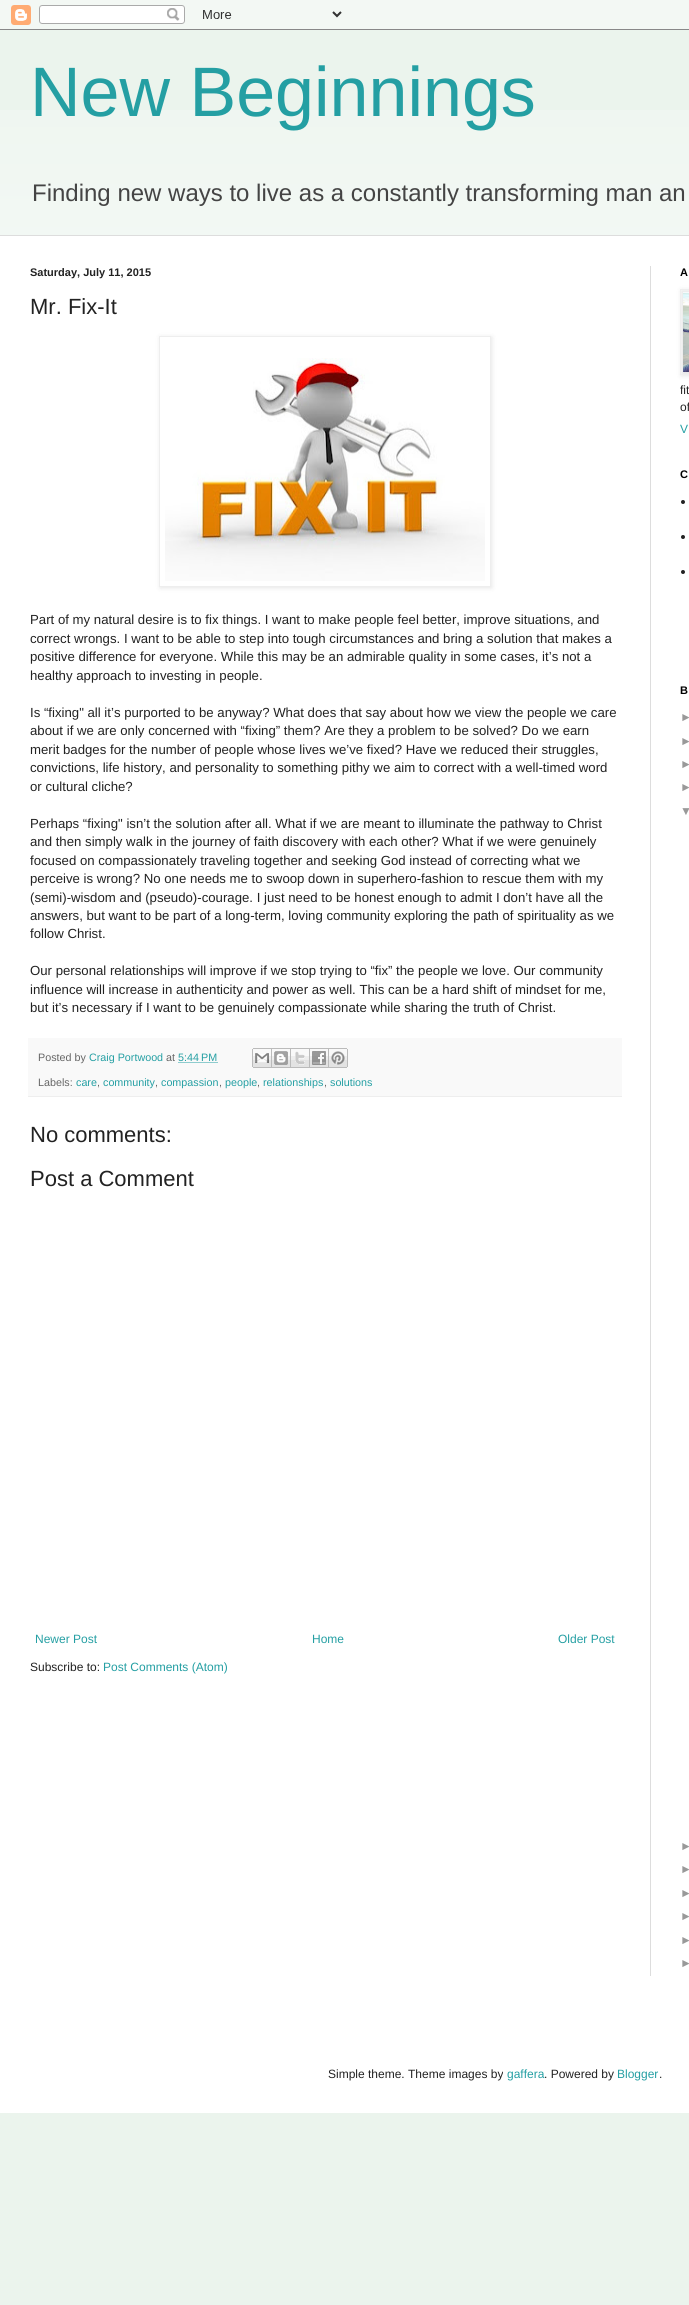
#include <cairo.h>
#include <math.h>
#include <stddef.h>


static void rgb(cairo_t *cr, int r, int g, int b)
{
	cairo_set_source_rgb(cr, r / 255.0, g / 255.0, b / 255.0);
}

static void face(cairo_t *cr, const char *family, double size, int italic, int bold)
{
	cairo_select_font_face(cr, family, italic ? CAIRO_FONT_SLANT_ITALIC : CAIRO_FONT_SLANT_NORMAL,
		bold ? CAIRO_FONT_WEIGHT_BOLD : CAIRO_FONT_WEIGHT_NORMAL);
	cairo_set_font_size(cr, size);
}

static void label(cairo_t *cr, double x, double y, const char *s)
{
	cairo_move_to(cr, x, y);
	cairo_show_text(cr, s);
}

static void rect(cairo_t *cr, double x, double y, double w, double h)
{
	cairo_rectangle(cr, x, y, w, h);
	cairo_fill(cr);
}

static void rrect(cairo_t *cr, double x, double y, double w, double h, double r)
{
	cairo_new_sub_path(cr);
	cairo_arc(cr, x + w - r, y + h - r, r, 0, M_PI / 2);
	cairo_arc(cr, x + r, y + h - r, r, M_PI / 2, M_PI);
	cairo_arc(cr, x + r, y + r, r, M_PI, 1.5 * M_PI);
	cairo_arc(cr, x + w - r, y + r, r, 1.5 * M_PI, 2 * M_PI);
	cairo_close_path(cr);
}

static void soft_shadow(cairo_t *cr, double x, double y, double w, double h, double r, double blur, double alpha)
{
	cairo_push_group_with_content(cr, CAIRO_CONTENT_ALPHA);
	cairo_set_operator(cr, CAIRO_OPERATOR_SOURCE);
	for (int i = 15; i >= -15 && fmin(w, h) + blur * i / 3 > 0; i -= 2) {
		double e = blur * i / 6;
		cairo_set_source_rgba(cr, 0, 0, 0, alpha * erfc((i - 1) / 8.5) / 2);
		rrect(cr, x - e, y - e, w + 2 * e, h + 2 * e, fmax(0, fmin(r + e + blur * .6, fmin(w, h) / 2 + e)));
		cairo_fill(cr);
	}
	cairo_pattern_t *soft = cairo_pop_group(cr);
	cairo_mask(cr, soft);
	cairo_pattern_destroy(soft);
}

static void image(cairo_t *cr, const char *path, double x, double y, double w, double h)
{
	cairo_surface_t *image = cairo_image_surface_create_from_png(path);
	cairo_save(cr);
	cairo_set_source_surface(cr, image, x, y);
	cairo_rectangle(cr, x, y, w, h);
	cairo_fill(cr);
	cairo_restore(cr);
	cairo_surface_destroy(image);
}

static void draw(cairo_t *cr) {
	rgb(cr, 235, 244, 237);
	cairo_paint(cr);
	image(cr, "image0.png", 0, 0, 689, 30);
	image(cr, "image8.png", 0, 110, 689, 125);
	face(cr, "Liberation Sans", 70, 0, 0);
	rgb(cr, 36, 159, 163);
	label(cr, 30, 116, "New Beginnings");
	face(cr, "Liberation Sans", 24, 0, 0);
	rgb(cr, 68, 68, 68);
	label(cr, 32, 201, "Finding new ways to live as a constantly transforming man an");
	rgb(cr, 255, 255, 255);
	rect(cr, 0, 236, 689, 1877);
	rgb(cr, 221, 221, 221);
	rect(cr, 0, 235, 689, 1);
	rect(cr, 650, 266, 1, 1710);
	face(cr, "Liberation Sans", 11, 0, 1);
	rgb(cr, 34, 34, 34);
	label(cr, 30, 276, "Saturday, July 11, 2015");
	face(cr, "Liberation Sans", 22, 0, 0);
	label(cr, 30, 314, "Mr. Fix-It");
	cairo_save(cr);
	cairo_set_fill_rule(cr, CAIRO_FILL_RULE_EVEN_ODD);
	cairo_new_path(cr);
	cairo_move_to(cr, 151, 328);
	cairo_line_to(cr, 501, 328);
	cairo_line_to(cr, 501, 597);
	cairo_line_to(cr, 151, 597);
	cairo_close_path(cr);
	cairo_move_to(cr, 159, 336);
	cairo_line_to(cr, 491, 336);
	cairo_line_to(cr, 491, 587);
	cairo_line_to(cr, 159, 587);
	cairo_close_path(cr);
	cairo_clip(cr);
	rgb(cr, 0, 0, 0);
	soft_shadow(cr, 160, 337, 332, 251, 0, 2.5, 0.1);
	cairo_restore(cr);
	cairo_rectangle(cr, 159.5, 336.5, 331, 250);
	rgb(cr, 238, 238, 238);
	cairo_set_line_width(cr, 1);
	cairo_stroke(cr);
	image(cr, "image1.png", 165, 358, 320, 223);
	face(cr, "Liberation Sans", 13.2, 0, 0);
	rgb(cr, 34, 34, 34);
	label(cr, 30, 624, "Part of my natural desire is to fix things. I want to make people feel better, improve situations, and");
	label(cr, 30, 643, "correct wrongs. I want to be able to step into tough circumstances and bring a solution that makes a");
	label(cr, 30, 661, "positive difference for everyone. While this may be an admirable quality in some cases, it’s not a");
	label(cr, 30, 680, "healthy approach to investing in people.");
	label(cr, 30, 717, "Is “fixing\" all it’s purported to be anyway? What does that say about how we view the people we care");
	label(cr, 30, 735, "about if we are only concerned with “fixing” them? Are they a problem to be solved? Do we earn");
	label(cr, 30, 754, "merit badges for the number of people whose lives we’ve fixed? Have we reduced their struggles,");
	label(cr, 30, 772, "convictions, life history, and personality to something pithy we aim to correct with a well-timed word");
	label(cr, 30, 791, "or cultural cliche?");
	label(cr, 30, 828, "Perhaps “fixing\" isn’t the solution after all. What if we are meant to illuminate the pathway to Christ");
	label(cr, 30, 846, "and then simply walk in the journey of faith discovery with each other? What if we were genuinely");
	label(cr, 30, 865, "focused on compassionately traveling together and seeking God instead of correcting what we");
	label(cr, 30, 883, "perceive is wrong? No one needs me to swoop down in superhero-fashion to rescue them with my");
	label(cr, 30, 902, "(semi)-wisdom and (pseudo)-courage. I just need to be honest enough to admit I don’t have all the");
	label(cr, 30, 920, "answers, but want to be part of a long-term, loving community exploring the path of spirituality as we");
	label(cr, 30, 938, "follow Christ.");
	label(cr, 30, 975, "Our personal relationships will improve if we stop trying to “fix” the people we love. Our community");
	label(cr, 30, 994, "influence will increase in authenticity and power as well. This can be a hard shift of mindset for me,");
	label(cr, 30, 1012, "but it’s necessary if I want to be genuinely compassionate while sharing the truth of Christ.");
	rgb(cr, 249, 249, 249);
	rect(cr, 28, 1038, 594, 58);
	rgb(cr, 238, 238, 238);
	rect(cr, 28, 1096, 594, 1);
	face(cr, "Liberation Sans", 10.75, 0, 0);
	rgb(cr, 102, 102, 102);
	label(cr, 38, 1061, "Posted by");
	rgb(cr, 36, 159, 163);
	label(cr, 89, 1061, "Craig Portwood");
	rgb(cr, 102, 102, 102);
	label(cr, 166, 1061, "at");
	rgb(cr, 36, 159, 163);
	label(cr, 178, 1061, "5:44 PM");
	cairo_new_path(cr);
	cairo_move_to(cr, 178.5, 1062.5);
	cairo_line_to(cr, 218, 1062.5);
	cairo_set_dash(cr, (double[]){1, 1}, 2, 0);
	cairo_stroke(cr);
	image(cr, "image2.png", 252, 1048, 20, 20);
	image(cr, "image3.png", 272, 1048, 19, 20);
	image(cr, "image4.png", 291, 1048, 19, 20);
	image(cr, "image5.png", 310, 1048, 19, 20);
	image(cr, "image6.png", 329, 1048, 19, 20);
	rgb(cr, 102, 102, 102);
	label(cr, 38, 1086, "Labels:");
	rgb(cr, 36, 159, 163);
	label(cr, 76, 1086, "care");
	rgb(cr, 102, 102, 102);
	label(cr, 97, 1086, ",");
	rgb(cr, 36, 159, 163);
	label(cr, 103, 1086, "community");
	rgb(cr, 102, 102, 102);
	label(cr, 155, 1086, ",");
	rgb(cr, 36, 159, 163);
	label(cr, 161, 1086, "compassion");
	rgb(cr, 102, 102, 102);
	label(cr, 219, 1086, ",");
	rgb(cr, 36, 159, 163);
	label(cr, 225, 1086, "people");
	rgb(cr, 102, 102, 102);
	label(cr, 257, 1086, ",");
	rgb(cr, 36, 159, 163);
	label(cr, 263, 1086, "relationships");
	rgb(cr, 102, 102, 102);
	label(cr, 324, 1086, ",");
	rgb(cr, 36, 159, 163);
	label(cr, 330, 1086, "solutions");
	face(cr, "Liberation Sans", 22, 0, 0);
	rgb(cr, 34, 34, 34);
	label(cr, 30, 1142, "No comments:");
	label(cr, 30, 1186, "Post a Comment");
	face(cr, "Liberation Sans", 12, 0, 0);
	rgb(cr, 36, 159, 163);
	label(cr, 35, 1643, "Newer Post");
	label(cr, 312, 1643, "Home");
	label(cr, 558, 1643, "Older Post");
	rgb(cr, 34, 34, 34);
	label(cr, 30, 1671, "Subscribe to:");
	rgb(cr, 36, 159, 163);
	label(cr, 103, 1671, "Post Comments (Atom)");
	face(cr, "Liberation Sans", 11, 0, 1);
	rgb(cr, 0, 0, 0);
	label(cr, 680, 276, "A");
	rgb(cr, 0, 0, 0);
	soft_shadow(cr, 681, 290, 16, 86, 0, 2.5, 0.1);
	cairo_rectangle(cr, 680.5, 289.5, 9, 85);
	rgb(cr, 238, 238, 238);
	cairo_set_dash(cr, NULL, 0, 0);
	cairo_stroke(cr);
	image(cr, "image7.png", 683, 292, 6, 80);
	face(cr, "Liberation Sans", 12, 0, 0);
	rgb(cr, 34, 34, 34);
	label(cr, 680, 394, "fit");
	label(cr, 680, 411, "of");
	rgb(cr, 36, 159, 163);
	label(cr, 680, 433, "V");
	face(cr, "Liberation Sans", 11, 0, 1);
	rgb(cr, 0, 0, 0);
	label(cr, 680, 478, "C");
	rgb(cr, 34, 34, 34);
	cairo_new_path(cr);
	cairo_arc(cr, 683, 502, 2, 0, 2 * M_PI);
	cairo_fill(cr);
	cairo_arc(cr, 683, 537, 2, 0, 2 * M_PI);
	cairo_fill(cr);
	cairo_arc(cr, 683, 572, 2, 0, 2 * M_PI);
	cairo_fill(cr);
	rgb(cr, 0, 0, 0);
	label(cr, 680, 694, "B");
	face(cr, "Liberation Sans", 12, 0, 0);
	rgb(cr, 153, 153, 153);
	label(cr, 680, 721, "►");
	label(cr, 680, 745, "►");
	label(cr, 680, 768, "►");
	label(cr, 680, 791, "►");
	label(cr, 680, 815, "▼");
	label(cr, 680, 1850, "►");
	label(cr, 680, 1873, "►");
	label(cr, 680, 1897, "►");
	label(cr, 680, 1920, "►");
	label(cr, 680, 1944, "►");
	label(cr, 680, 1967, "►");
	rgb(cr, 34, 34, 34);
	label(cr, 328, 2078, "Simple theme. Theme images by");
	rgb(cr, 36, 159, 163);
	label(cr, 507, 2078, "gaffera");
	rgb(cr, 34, 34, 34);
	label(cr, 544, 2078, ". Powered by");
	rgb(cr, 36, 159, 163);
	label(cr, 617, 2078, "Blogger");
	rgb(cr, 34, 34, 34);
	label(cr, 659, 2078, ".");
}

int main(void) {
	cairo_surface_t *surface = cairo_image_surface_create(CAIRO_FORMAT_RGB24, 689, 2305);
	cairo_t *cr = cairo_create(surface);
	cairo_font_options_t *options = cairo_font_options_create();
	cairo_font_options_set_hint_metrics(options, CAIRO_HINT_METRICS_OFF);
	cairo_font_options_set_hint_style(options, CAIRO_HINT_STYLE_NONE);
	cairo_set_font_options(cr, options);
	cairo_set_miter_limit(cr, 4);
	draw(cr);
	cairo_surface_write_to_png(surface, "render.png");
	cairo_font_options_destroy(options);
	cairo_destroy(cr);
	cairo_surface_destroy(surface);
	return 0;
}
